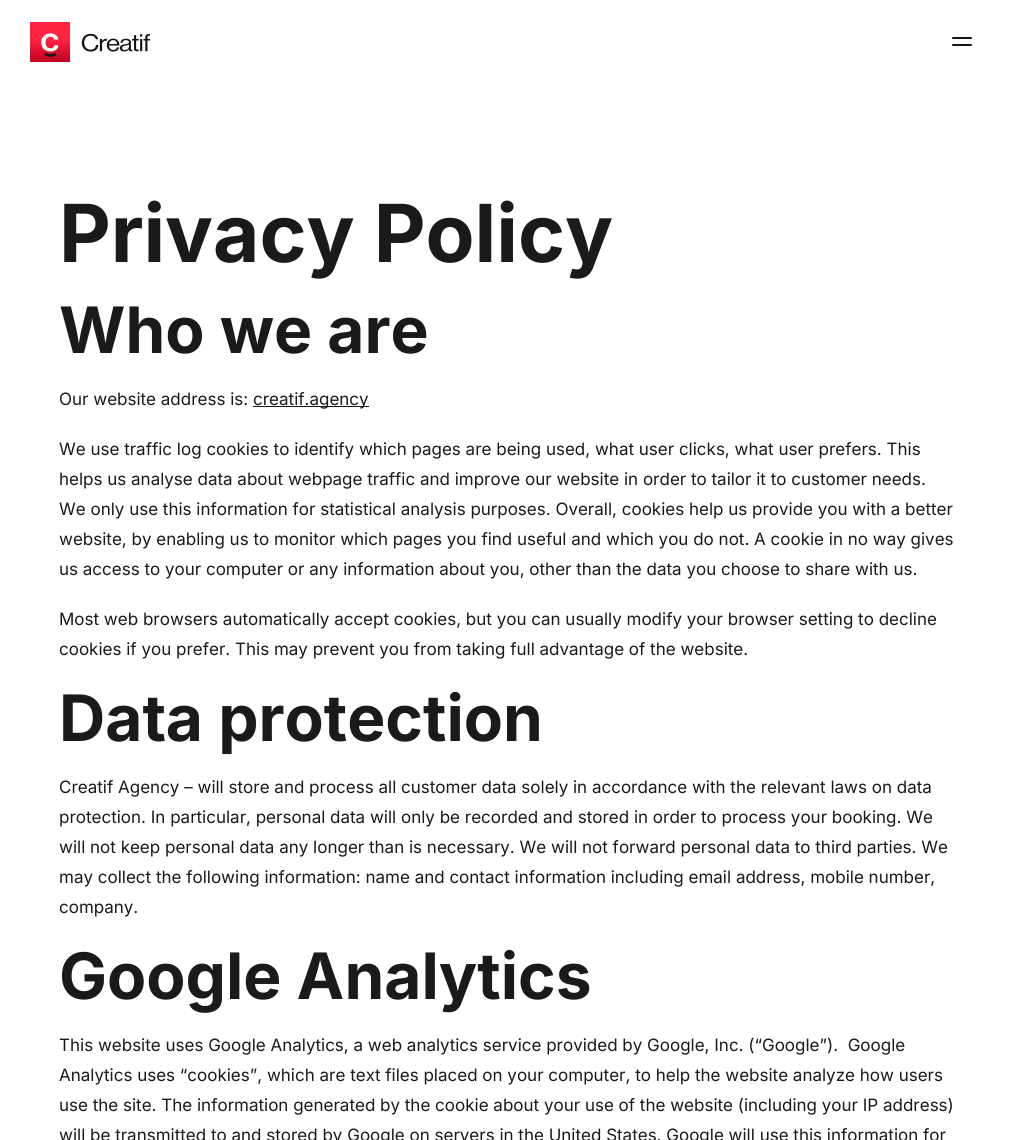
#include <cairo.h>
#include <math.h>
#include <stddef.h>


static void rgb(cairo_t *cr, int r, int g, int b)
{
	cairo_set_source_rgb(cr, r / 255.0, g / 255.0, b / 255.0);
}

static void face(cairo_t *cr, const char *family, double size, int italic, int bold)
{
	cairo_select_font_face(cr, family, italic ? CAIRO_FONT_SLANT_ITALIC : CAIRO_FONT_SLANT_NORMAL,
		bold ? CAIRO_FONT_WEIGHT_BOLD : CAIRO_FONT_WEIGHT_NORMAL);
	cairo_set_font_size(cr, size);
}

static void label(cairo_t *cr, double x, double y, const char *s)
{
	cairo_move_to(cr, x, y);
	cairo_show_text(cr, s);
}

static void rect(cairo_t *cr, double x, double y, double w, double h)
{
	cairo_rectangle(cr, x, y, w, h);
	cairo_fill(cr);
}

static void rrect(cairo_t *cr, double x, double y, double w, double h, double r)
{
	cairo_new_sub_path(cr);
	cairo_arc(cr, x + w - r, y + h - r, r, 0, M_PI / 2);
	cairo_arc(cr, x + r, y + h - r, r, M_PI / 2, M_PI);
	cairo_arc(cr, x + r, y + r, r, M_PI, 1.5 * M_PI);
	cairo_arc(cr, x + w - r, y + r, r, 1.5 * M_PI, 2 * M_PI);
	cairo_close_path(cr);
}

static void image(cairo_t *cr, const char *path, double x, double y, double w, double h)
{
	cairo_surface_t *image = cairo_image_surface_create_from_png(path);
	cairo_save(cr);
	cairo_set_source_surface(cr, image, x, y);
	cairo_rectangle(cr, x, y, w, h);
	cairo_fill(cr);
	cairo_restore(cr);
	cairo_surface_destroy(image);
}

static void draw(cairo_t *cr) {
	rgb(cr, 255, 255, 255);
	cairo_paint(cr);
	image(cr, "image0.png", 30, 22, 120, 40);
	rgb(cr, 22, 22, 22);
	rrect(cr, 952, 37, 20, 2, 1);
	cairo_fill(cr);
	rrect(cr, 952, 44, 20, 2, 1);
	cairo_fill(cr);
	face(cr, "Inter", 80, 0, 1);
	rgb(cr, 26, 26, 26);
	label(cr, 59, 262, "Privacy Policy");
	face(cr, "Inter", 64, 0, 1);
	label(cr, 59, 353, "Who we are");
	face(cr, "Inter", 17, 0, 0);
	label(cr, 59, 405, "Our website address is:");
	rect(cr, 253, 406, 116, 1);
	label(cr, 253, 405, "creatif.agency");
	label(cr, 59, 455, "We use traffic log cookies to identify which pages are being used, what user clicks, what user prefers. This");
	label(cr, 59, 485, "helps us analyse data about webpage traffic and improve our website in order to tailor it to customer needs.");
	label(cr, 59, 515, "We only use this information for statistical analysis purposes. Overall, cookies help us provide you with a better");
	label(cr, 59, 545, "website, by enabling us to monitor which pages you find useful and which you do not. A cookie in no way gives");
	label(cr, 59, 575, "us access to your computer or any information about you, other than the data you choose to share with us.");
	label(cr, 59, 625, "Most web browsers automatically accept cookies, but you can usually modify your browser setting to decline");
	label(cr, 59, 655, "cookies if you prefer. This may prevent you from taking full advantage of the website.");
	face(cr, "Inter", 64, 0, 1);
	label(cr, 59, 741, "Data protection");
	face(cr, "Inter", 17, 0, 0);
	label(cr, 59, 793, "Creatif Agency – will store and process all customer data solely in accordance with the relevant laws on data");
	label(cr, 59, 823, "protection. In particular, personal data will only be recorded and stored in order to process your booking. We");
	label(cr, 59, 853, "will not keep personal data any longer than is necessary. We will not forward personal data to third parties. We");
	label(cr, 59, 883, "may collect the following information: name and contact information including email address, mobile number,");
	label(cr, 59, 913, "company.");
	face(cr, "Inter", 64, 0, 1);
	label(cr, 59, 999, "Google Analytics");
	face(cr, "Inter", 17, 0, 0);
	label(cr, 59, 1051, "This website uses Google Analytics, a web analytics service provided by Google, Inc. (“Google”).  Google");
	label(cr, 59, 1081, "Analytics uses “cookies”, which are text files placed on your computer, to help the website analyze how users");
	label(cr, 59, 1111, "use the site. The information generated by the cookie about your use of the website (including your IP address)");
	label(cr, 59, 1141, "will be transmitted to and stored by Google on servers in the United States. Google will use this information for");
}

int main(void) {
	cairo_surface_t *surface = cairo_image_surface_create(CAIRO_FORMAT_RGB24, 1013, 1140);
	cairo_t *cr = cairo_create(surface);
	cairo_font_options_t *options = cairo_font_options_create();
	cairo_font_options_set_hint_metrics(options, CAIRO_HINT_METRICS_OFF);
	cairo_font_options_set_hint_style(options, CAIRO_HINT_STYLE_NONE);
	cairo_set_font_options(cr, options);
	cairo_set_miter_limit(cr, 4);
	draw(cr);
	cairo_surface_write_to_png(surface, "render.png");
	cairo_font_options_destroy(options);
	cairo_destroy(cr);
	cairo_surface_destroy(surface);
	return 0;
}
